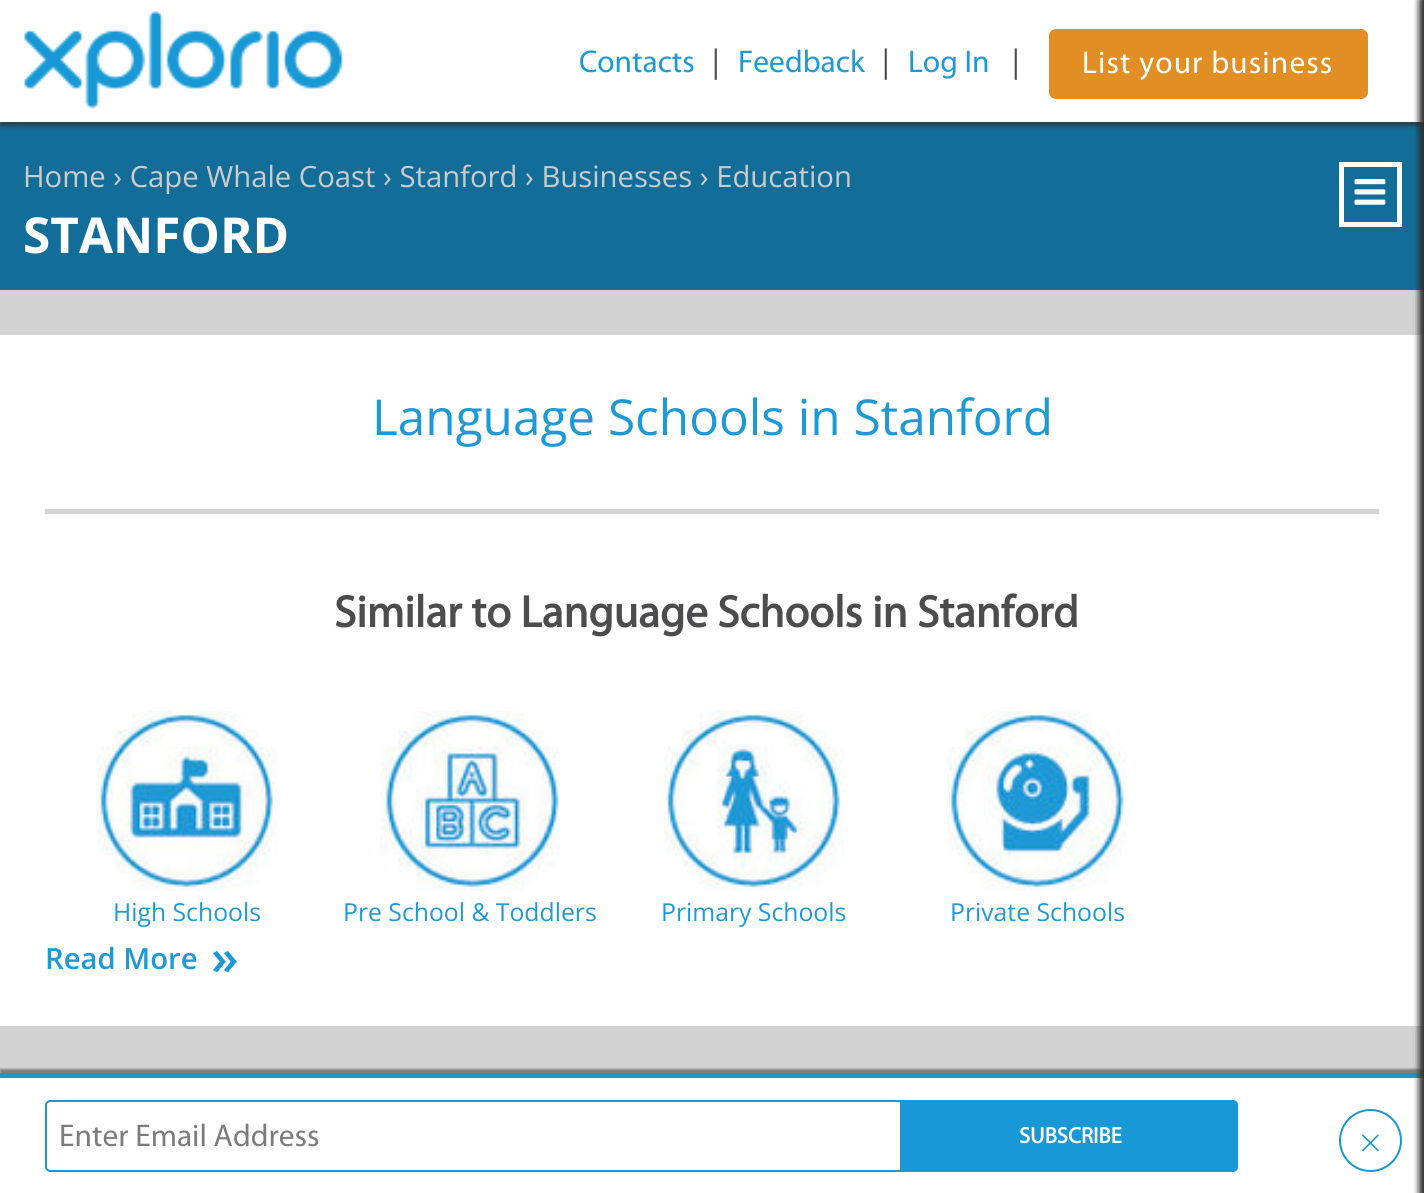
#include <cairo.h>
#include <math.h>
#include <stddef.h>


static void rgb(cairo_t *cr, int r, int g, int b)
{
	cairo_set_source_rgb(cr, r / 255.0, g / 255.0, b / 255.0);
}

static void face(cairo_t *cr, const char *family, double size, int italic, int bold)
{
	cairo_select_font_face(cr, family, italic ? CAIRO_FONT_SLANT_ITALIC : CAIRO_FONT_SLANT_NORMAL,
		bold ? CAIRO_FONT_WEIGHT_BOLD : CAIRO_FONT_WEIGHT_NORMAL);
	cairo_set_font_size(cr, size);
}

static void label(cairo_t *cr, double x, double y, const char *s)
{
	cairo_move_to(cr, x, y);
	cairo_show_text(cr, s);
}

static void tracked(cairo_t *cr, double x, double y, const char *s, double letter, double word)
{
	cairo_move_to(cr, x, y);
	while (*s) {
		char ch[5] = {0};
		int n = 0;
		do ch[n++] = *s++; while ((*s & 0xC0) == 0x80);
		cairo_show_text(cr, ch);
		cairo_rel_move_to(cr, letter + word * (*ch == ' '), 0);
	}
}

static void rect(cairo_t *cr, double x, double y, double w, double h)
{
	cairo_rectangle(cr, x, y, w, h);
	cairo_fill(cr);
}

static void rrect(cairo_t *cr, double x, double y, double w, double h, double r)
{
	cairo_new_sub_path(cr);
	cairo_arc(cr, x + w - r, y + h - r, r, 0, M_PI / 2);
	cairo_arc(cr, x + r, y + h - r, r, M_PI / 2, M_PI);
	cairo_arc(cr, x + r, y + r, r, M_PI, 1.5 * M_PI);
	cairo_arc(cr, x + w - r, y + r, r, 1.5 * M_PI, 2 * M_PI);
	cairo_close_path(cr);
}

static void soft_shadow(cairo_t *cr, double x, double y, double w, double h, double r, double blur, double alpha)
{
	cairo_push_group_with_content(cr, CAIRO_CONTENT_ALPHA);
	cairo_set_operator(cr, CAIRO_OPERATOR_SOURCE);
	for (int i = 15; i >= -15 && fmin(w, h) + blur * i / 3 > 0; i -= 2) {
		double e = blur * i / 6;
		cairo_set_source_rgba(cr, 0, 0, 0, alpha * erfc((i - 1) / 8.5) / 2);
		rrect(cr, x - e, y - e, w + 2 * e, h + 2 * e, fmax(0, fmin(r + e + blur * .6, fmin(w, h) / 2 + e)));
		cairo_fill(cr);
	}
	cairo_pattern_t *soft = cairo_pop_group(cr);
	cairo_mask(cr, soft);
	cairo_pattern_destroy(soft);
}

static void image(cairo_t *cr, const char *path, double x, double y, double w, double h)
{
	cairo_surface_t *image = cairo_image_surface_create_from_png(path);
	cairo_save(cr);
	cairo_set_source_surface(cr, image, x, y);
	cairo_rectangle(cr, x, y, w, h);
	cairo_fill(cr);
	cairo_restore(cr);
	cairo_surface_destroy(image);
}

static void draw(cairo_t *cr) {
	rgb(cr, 211, 211, 211);
	cairo_paint(cr);
	rgb(cr, 19, 109, 153);
	rect(cr, 0, 122, 1424, 168);
	rgb(cr, 45, 45, 45);
	soft_shadow(cr, 0, 5, 1424, 121, 0, 2, 0.7);
	rgb(cr, 255, 255, 255);
	rect(cr, 0, 0, 1424, 122);
	image(cr, "image0.png", 24, 11, 319, 98);
	face(cr, "Myriad", 31.5, 0, 0);
	rgb(cr, 29, 154, 214);
	label(cr, 579, 72, "Contacts");
	rgb(cr, 76, 76, 78);
	label(cr, 712, 72, "|");
	rgb(cr, 29, 154, 214);
	label(cr, 738, 72, "Feedback");
	rgb(cr, 76, 76, 78);
	label(cr, 882, 72, "|");
	rgb(cr, 29, 154, 214);
	label(cr, 908, 72, "Log In");
	rgb(cr, 76, 76, 78);
	label(cr, 1012, 72, "|");
	rgb(cr, 225, 142, 36);
	rrect(cr, 1049, 29, 319, 70, 7);
	cairo_fill(cr);
	rgb(cr, 255, 255, 255);
	tracked(cr, 1082, 73, "List your business", 1.1, 0);
	rect(cr, 0, 335, 1424, 691);
	rgb(cr, 0, 0, 0);
	soft_shadow(cr, 0, 1069, 1424, 121, 0, 1, 0.4);
	rgb(cr, 255, 255, 255);
	rect(cr, 0, 1078, 1424, 115);
	rgb(cr, 24, 152, 213);
	rect(cr, 0, 1073, 1424, 5);
	rgb(cr, 45, 45, 45);
	soft_shadow(cr, 1424, 0, 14, 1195, 0, 4.5, 0.7);
	soft_shadow(cr, 1424, 0, 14, 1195, 0, 4.5, 0.7);
	soft_shadow(cr, 1424, 0, 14, 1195, 0, 4.5, 0.7);
	soft_shadow(cr, 1424, 0, 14, 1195, 0, 4.5, 0.7);
	soft_shadow(cr, 1424, 0, 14, 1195, 0, 4.5, 0.7);
	soft_shadow(cr, 1424, 0, 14, 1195, 0, 4.5, 0.7);
	soft_shadow(cr, 1424, 0, 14, 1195, 0, 4.5, 0.7);
	face(cr, "Open Sans", 29.25, 0, 0);
	rgb(cr, 204, 204, 204);
	label(cr, 23, 187, "Home › Cape Whale Coast › Stanford › Businesses › Education");
	face(cr, "Open Sans", 49.5, 0, 1);
	rgb(cr, 255, 255, 255);
	label(cr, 23, 253, "STANFORD");
	cairo_rectangle(cr, 1341.5, 164.5, 58, 60);
	cairo_set_line_width(cr, 5);
	cairo_stroke(cr);
	image(cr, "image1.png", 1354, 179, 32, 26);
	face(cr, "Open Sans", 49.5, 0, 0);
	rgb(cr, 29, 154, 214);
	label(cr, 372, 435, "Language Schools in Stanford");
	rgb(cr, 211, 211, 211);
	rect(cr, 45, 509, 1334, 5);
	face(cr, "Myriad", 45, 0, 1);
	rgb(cr, 76, 76, 78);
	label(cr, 334, 627, "Similar to Language Schools in Stanford");
	image(cr, "image2.png", 96, 711, 181, 180);
	face(cr, "Open Sans", 24.75, 0, 0);
	rgb(cr, 29, 154, 214);
	label(cr, 113, 921, "High Schools");
	image(cr, "image3.png", 380, 711, 181, 180);
	label(cr, 343, 921, "Pre School & Toddlers");
	image(cr, "image4.png", 663, 711, 181, 180);
	label(cr, 661, 921, "Primary Schools");
	image(cr, "image5.png", 947, 711, 180, 180);
	label(cr, 950, 921, "Private Schools");
	face(cr, "Open Sans SemiBold", 29.25, 0, 0);
	label(cr, 45, 969, "Read More");
	face(cr, "Open Sans SemiBold", 49.5, 0, 0);
	label(cr, 211, 975, "»");
	cairo_new_path(cr);
	cairo_move_to(cr, 50, 1101);
	cairo_line_to(cr, 901, 1101);
	cairo_line_to(cr, 901, 1171);
	cairo_line_to(cr, 50, 1171);
	cairo_curve_to(cr, 48, 1171, 46, 1169, 46, 1167);
	cairo_line_to(cr, 46, 1105);
	cairo_curve_to(cr, 46, 1103, 48, 1101, 50, 1101);
	cairo_close_path(cr);
	rgb(cr, 24, 152, 213);
	cairo_set_line_width(cr, 2);
	cairo_stroke(cr);
	face(cr, "Myriad", 31.5, 0, 0);
	rgb(cr, 124, 124, 124);
	label(cr, 59, 1146, "Enter Email Address");
	rgb(cr, 24, 152, 213);
	cairo_new_path(cr);
	cairo_move_to(cr, 902, 1100);
	cairo_line_to(cr, 1233, 1100);
	cairo_curve_to(cr, 1236, 1100, 1238, 1102, 1238, 1105);
	cairo_line_to(cr, 1238, 1167);
	cairo_curve_to(cr, 1238, 1170, 1236, 1172, 1233, 1172);
	cairo_line_to(cr, 902, 1172);
	cairo_close_path(cr);
	cairo_fill(cr);
	face(cr, "Myriad", 22.5, 0, 1);
	rgb(cr, 255, 255, 255);
	label(cr, 1019, 1143, "SUBSCRIBE");
	cairo_new_path(cr);
	cairo_arc(cr, 1370.5, 1140.5, 30.5, 0, 2 * M_PI);
	rgb(cr, 24, 152, 213);
	cairo_stroke(cr);
	face(cr, "Open Sans Light", 40, 0, 0);
	rgb(cr, 29, 154, 214);
	label(cr, 1359, 1157, "×");
}

int main(void) {
	cairo_surface_t *surface = cairo_image_surface_create(CAIRO_FORMAT_RGB24, 1424, 1193);
	cairo_t *cr = cairo_create(surface);
	cairo_font_options_t *options = cairo_font_options_create();
	cairo_font_options_set_hint_metrics(options, CAIRO_HINT_METRICS_OFF);
	cairo_font_options_set_hint_style(options, CAIRO_HINT_STYLE_NONE);
	cairo_set_font_options(cr, options);
	cairo_set_miter_limit(cr, 4);
	draw(cr);
	cairo_surface_write_to_png(surface, "render.png");
	cairo_font_options_destroy(options);
	cairo_destroy(cr);
	cairo_surface_destroy(surface);
	return 0;
}
